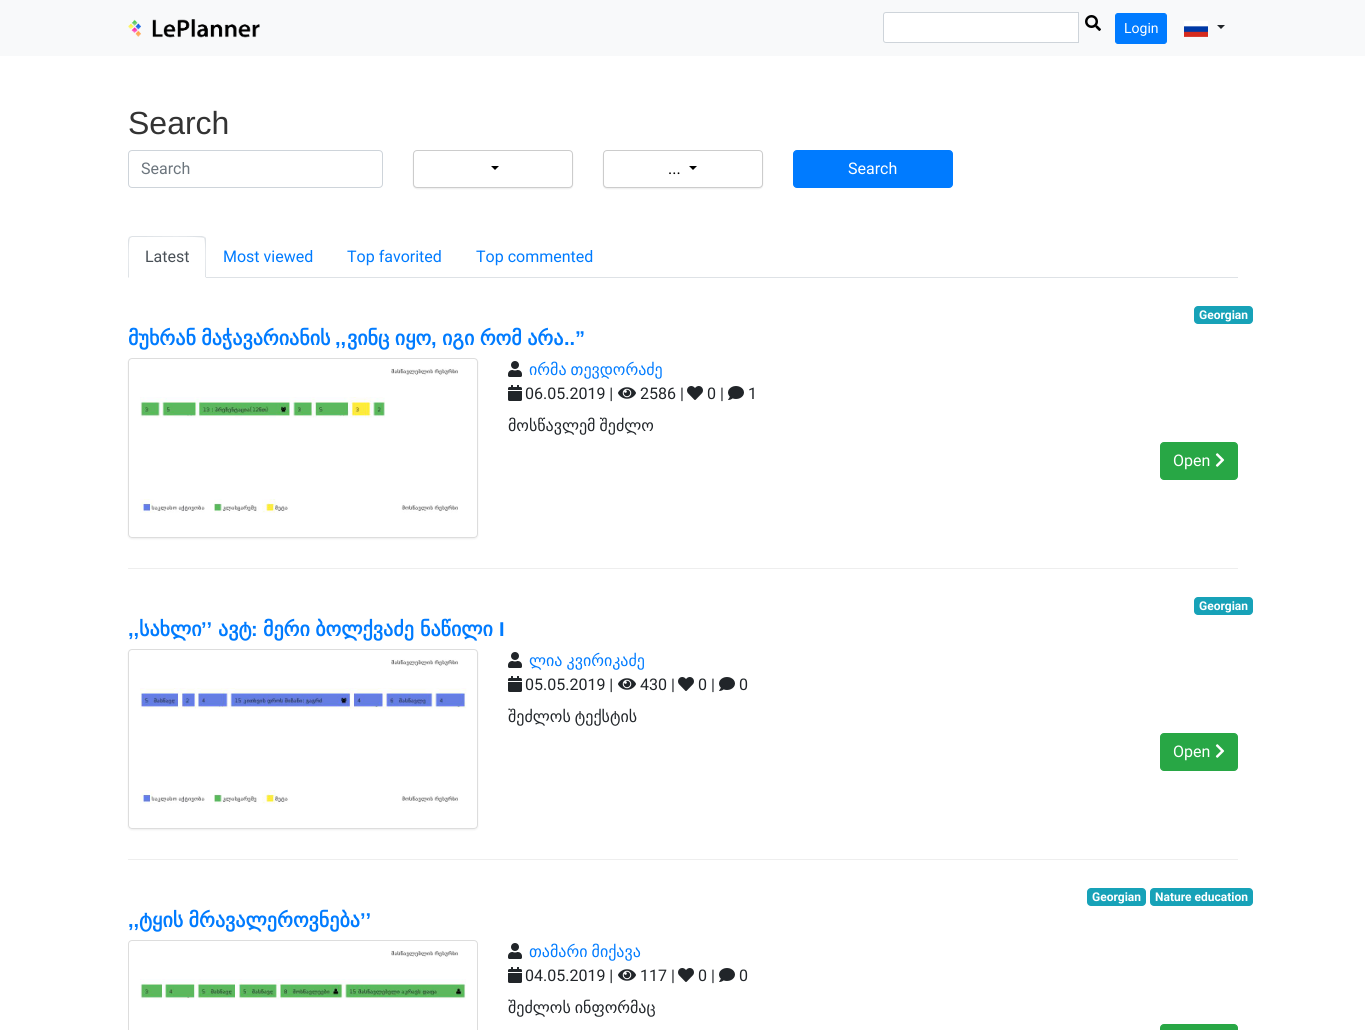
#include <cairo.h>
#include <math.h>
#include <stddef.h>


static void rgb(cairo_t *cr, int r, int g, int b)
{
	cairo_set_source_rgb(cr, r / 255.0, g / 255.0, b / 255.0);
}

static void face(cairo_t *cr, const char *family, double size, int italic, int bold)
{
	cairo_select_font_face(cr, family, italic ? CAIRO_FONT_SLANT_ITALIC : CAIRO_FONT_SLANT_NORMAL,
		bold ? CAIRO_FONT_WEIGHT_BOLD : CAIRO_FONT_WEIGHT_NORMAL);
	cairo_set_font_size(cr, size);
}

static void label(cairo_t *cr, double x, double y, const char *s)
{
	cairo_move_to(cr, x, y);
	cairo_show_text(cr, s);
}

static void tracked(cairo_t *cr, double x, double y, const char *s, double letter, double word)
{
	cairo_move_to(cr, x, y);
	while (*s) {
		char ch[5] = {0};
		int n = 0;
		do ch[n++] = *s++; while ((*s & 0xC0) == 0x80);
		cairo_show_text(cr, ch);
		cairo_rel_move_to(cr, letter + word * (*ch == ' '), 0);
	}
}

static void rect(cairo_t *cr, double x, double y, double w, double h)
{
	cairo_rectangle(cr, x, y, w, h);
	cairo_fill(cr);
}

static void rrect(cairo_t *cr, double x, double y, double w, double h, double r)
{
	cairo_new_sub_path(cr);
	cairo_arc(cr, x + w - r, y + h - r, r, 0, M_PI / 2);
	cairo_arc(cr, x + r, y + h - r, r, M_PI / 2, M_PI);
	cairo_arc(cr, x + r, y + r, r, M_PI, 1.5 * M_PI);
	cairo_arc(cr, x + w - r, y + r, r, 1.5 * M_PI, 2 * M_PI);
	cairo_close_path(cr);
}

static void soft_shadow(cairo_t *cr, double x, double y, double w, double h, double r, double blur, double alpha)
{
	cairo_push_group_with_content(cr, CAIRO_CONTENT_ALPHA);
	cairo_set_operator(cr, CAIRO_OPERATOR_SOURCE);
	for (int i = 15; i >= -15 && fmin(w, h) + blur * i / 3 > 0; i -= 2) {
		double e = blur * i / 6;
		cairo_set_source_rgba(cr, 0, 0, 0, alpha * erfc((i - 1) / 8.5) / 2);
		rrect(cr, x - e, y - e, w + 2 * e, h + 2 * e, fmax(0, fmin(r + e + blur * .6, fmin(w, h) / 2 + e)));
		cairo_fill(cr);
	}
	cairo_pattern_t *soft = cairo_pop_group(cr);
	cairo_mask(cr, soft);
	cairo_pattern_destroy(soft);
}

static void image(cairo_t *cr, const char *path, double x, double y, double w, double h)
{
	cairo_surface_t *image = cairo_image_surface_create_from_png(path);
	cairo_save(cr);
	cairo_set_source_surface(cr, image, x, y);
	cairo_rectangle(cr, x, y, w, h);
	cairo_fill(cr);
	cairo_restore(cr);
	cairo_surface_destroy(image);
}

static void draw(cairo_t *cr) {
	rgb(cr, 255, 255, 255);
	cairo_paint(cr);
	rgb(cr, 248, 249, 250);
	rect(cr, 0, 0, 1365, 56);
	image(cr, "image0.png", 128, 19, 132, 19);
	rgb(cr, 255, 255, 255);
	cairo_new_path(cr);
	cairo_move_to(cr, 886, 12.5);
	cairo_line_to(cr, 1078.5, 12.5);
	cairo_line_to(cr, 1078.5, 42.5);
	cairo_line_to(cr, 886, 42.5);
	cairo_curve_to(cr, 884.5, 42.5, 883.5, 41.5, 883.5, 40);
	cairo_line_to(cr, 883.5, 15);
	cairo_curve_to(cr, 883.5, 13.5, 884.5, 12.5, 886, 12.5);
	cairo_close_path(cr);
	cairo_fill_preserve(cr);
	rgb(cr, 206, 212, 218);
	cairo_set_line_width(cr, 1);
	cairo_stroke(cr);
	image(cr, "image1.png", 1085, 15, 16, 16);
	rgb(cr, 0, 123, 255);
	rrect(cr, 1115.5, 13.5, 51, 30, 2.5);
	cairo_fill_preserve(cr);
	cairo_stroke(cr);
	face(cr, "Roboto", 14, 0, 0);
	rgb(cr, 255, 255, 255);
	label(cr, 1124, 33, "Login");
	image(cr, "image2.png", 1184, 21, 24, 16);
	rgb(cr, 33, 37, 41);
	cairo_new_path(cr);
	cairo_move_to(cr, 1217, 25);
	cairo_line_to(cr, 1225, 25);
	cairo_line_to(cr, 1221, 29);
	cairo_close_path(cr);
	cairo_fill(cr);
	face(cr, "Liberation Sans", 32, 0, 0);
	rgb(cr, 51, 51, 51);
	label(cr, 128, 134, "Search");
	rrect(cr, 128.5, 150.5, 254, 37, 3.5);
	rgb(cr, 206, 212, 218);
	cairo_stroke(cr);
	face(cr, "Roboto", 16, 0, 0);
	rgb(cr, 108, 117, 125);
	label(cr, 141, 174, "Search");
	rgb(cr, 0, 0, 0);
	soft_shadow(cr, 413, 151, 160, 38, 4, 0.5, 0.07);
	rgb(cr, 255, 255, 255);
	rrect(cr, 413.5, 150.5, 159, 37, 3.5);
	cairo_fill_preserve(cr);
	rgb(cr, 204, 204, 204);
	cairo_stroke(cr);
	rgb(cr, 0, 0, 0);
	cairo_new_path(cr);
	cairo_move_to(cr, 491, 166);
	cairo_line_to(cr, 499, 166);
	cairo_line_to(cr, 495, 170);
	cairo_close_path(cr);
	cairo_fill(cr);
	rgb(cr, 0, 0, 0);
	soft_shadow(cr, 603, 151, 160, 38, 4, 0.5, 0.07);
	rgb(cr, 255, 255, 255);
	rrect(cr, 603.5, 150.5, 159, 37, 3.5);
	cairo_fill_preserve(cr);
	rgb(cr, 204, 204, 204);
	cairo_stroke(cr);
	rgb(cr, 0, 0, 0);
	cairo_new_path(cr);
	cairo_move_to(cr, 689, 166);
	cairo_line_to(cr, 697, 166);
	cairo_line_to(cr, 693, 170);
	cairo_close_path(cr);
	cairo_fill(cr);
	label(cr, 668, 174, "...");
	rgb(cr, 0, 123, 255);
	rrect(cr, 793.5, 150.5, 159, 37, 3.5);
	cairo_fill_preserve(cr);
	cairo_stroke(cr);
	rgb(cr, 255, 255, 255);
	label(cr, 848, 174, "Search");
	rgb(cr, 222, 226, 230);
	rect(cr, 206, 277, 1032, 1);
	cairo_new_path(cr);
	cairo_move_to(cr, 132, 236);
	cairo_line_to(cr, 129, 237);
	cairo_line_to(cr, 130, 238);
	cairo_line_to(cr, 132, 237);
	cairo_line_to(cr, 144, 237);
	cairo_curve_to(cr, 150, 237, 202, 236, 204, 238);
	cairo_line_to(cr, 205, 237);
	cairo_line_to(cr, 202, 236);
	cairo_close_path(cr);
	cairo_fill(cr);
	cairo_new_path(cr);
	cairo_move_to(cr, 206, 278);
	cairo_line_to(cr, 206, 240);
	cairo_curve_to(cr, 206, 239, 206, 238, 205, 237);
	cairo_line_to(cr, 204, 238);
	cairo_curve_to(cr, 206, 240, 205, 272, 205, 277);
	cairo_close_path(cr);
	cairo_fill(cr);
	rgb(cr, 255, 255, 255);
	cairo_new_path(cr);
	cairo_move_to(cr, 206, 278);
	cairo_line_to(cr, 205, 277);
	cairo_line_to(cr, 129, 277);
	cairo_line_to(cr, 128, 278);
	cairo_close_path(cr);
	cairo_fill(cr);
	rgb(cr, 222, 226, 230);
	cairo_new_path(cr);
	cairo_move_to(cr, 128, 278);
	cairo_line_to(cr, 129, 277);
	cairo_curve_to(cr, 129, 272, 128, 240, 130, 238);
	cairo_line_to(cr, 129, 237);
	cairo_line_to(cr, 128, 240);
	cairo_close_path(cr);
	cairo_fill(cr);
	rgb(cr, 73, 80, 87);
	label(cr, 145, 262, "Latest");
	rgb(cr, 0, 123, 255);
	label(cr, 223, 262, "Most viewed");
	label(cr, 347, 262, "Top favorited");
	label(cr, 476, 262, "Top commented");
	rgb(cr, 238, 238, 238);
	rect(cr, 128, 568, 1110, 1);
	rgb(cr, 23, 162, 184);
	rrect(cr, 1194, 306, 59, 18, 4);
	cairo_fill(cr);
	face(cr, "Roboto", 12, 0, 1);
	rgb(cr, 255, 255, 255);
	label(cr, 1199, 319, "Georgian");
	face(cr, "DejaVu Sans", 20, 0, 1);
	rgb(cr, 0, 123, 255);
	tracked(cr, 128, 345, "მუხრან მაჭავარიანის", 0, -1);
	face(cr, "Liberation Sans", 20, 0, 1);
	label(cr, 335, 345, ",,");
	face(cr, "DejaVu Sans", 20, 0, 1);
	tracked(cr, 347, 345, "ვინც იყო", 0, -1);
	face(cr, "Liberation Sans", 20, 0, 1);
	label(cr, 431, 345, ",");
	face(cr, "DejaVu Sans", 20, 0, 1);
	tracked(cr, 442, 345, "იგი რომ არა", 0, -1);
	face(cr, "Liberation Sans", 20, 0, 1);
	label(cr, 564, 345, "..”");
	cairo_save(cr);
	cairo_set_fill_rule(cr, CAIRO_FILL_RULE_EVEN_ODD);
	cairo_new_path(cr);
	cairo_move_to(cr, 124, 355);
	cairo_line_to(cr, 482, 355);
	cairo_line_to(cr, 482, 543);
	cairo_line_to(cr, 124, 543);
	cairo_close_path(cr);
	cairo_move_to(cr, 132, 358);
	cairo_line_to(cr, 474, 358);
	cairo_curve_to(cr, 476, 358, 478, 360, 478, 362);
	cairo_line_to(cr, 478, 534);
	cairo_curve_to(cr, 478, 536, 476, 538, 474, 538);
	cairo_line_to(cr, 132, 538);
	cairo_curve_to(cr, 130, 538, 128, 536, 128, 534);
	cairo_line_to(cr, 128, 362);
	cairo_curve_to(cr, 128, 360, 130, 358, 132, 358);
	cairo_close_path(cr);
	cairo_clip(cr);
	rgb(cr, 0, 0, 0);
	soft_shadow(cr, 128, 359, 350, 180, 4, 1, 0.07);
	cairo_restore(cr);
	rrect(cr, 128.5, 358.5, 349, 179, 3.5);
	rgb(cr, 221, 221, 221);
	cairo_stroke(cr);
	image(cr, "image3.png", 140, 368, 318, 145);
	image(cr, "image4.png", 508, 361, 14, 16);
	face(cr, "DejaVu Sans", 16, 0, 0);
	rgb(cr, 0, 123, 255);
	tracked(cr, 529, 375, "ირმა თევდორაძე", 0, -1);
	image(cr, "image5.png", 508, 385, 14, 16);
	face(cr, "Roboto", 16, 0, 0);
	rgb(cr, 33, 37, 41);
	label(cr, 525, 399, "06.05.2019 |");
	image(cr, "image6.png", 618, 387, 18, 12);
	label(cr, 640, 399, "2586 |");
	image(cr, "image7.png", 687, 386, 16, 14);
	label(cr, 707, 399, "0 |");
	image(cr, "image8.png", 728, 386, 16, 14);
	label(cr, 748, 399, "1");
	face(cr, "DejaVu Sans", 16, 0, 0);
	tracked(cr, 508, 431, "მოსწავლემ შეძლო", 0, -1);
	rgb(cr, 40, 167, 69);
	rrect(cr, 1160.5, 442.5, 77, 37, 3.5);
	cairo_fill_preserve(cr);
	cairo_stroke(cr);
	face(cr, "Roboto", 16, 0, 0);
	rgb(cr, 255, 255, 255);
	label(cr, 1173, 466, "Open");
	image(cr, "image9.png", 1215, 453, 10, 14);
	rgb(cr, 238, 238, 238);
	rect(cr, 128, 859, 1110, 1);
	rgb(cr, 23, 162, 184);
	rrect(cr, 1194, 597, 59, 18, 4);
	cairo_fill(cr);
	face(cr, "Roboto", 12, 0, 1);
	rgb(cr, 255, 255, 255);
	label(cr, 1199, 610, "Georgian");
	face(cr, "Liberation Sans", 20, 0, 1);
	rgb(cr, 0, 123, 255);
	label(cr, 128, 636, ",,");
	face(cr, "DejaVu Sans", 20, 0, 1);
	label(cr, 139, 636, "სახლი");
	face(cr, "Liberation Sans", 20, 0, 1);
	label(cr, 201, 636, "’’");
	face(cr, "DejaVu Sans", 20, 0, 1);
	label(cr, 218, 636, "ავტ");
	face(cr, "Liberation Sans", 20, 0, 1);
	label(cr, 251, 636, ":");
	face(cr, "DejaVu Sans", 20, 0, 1);
	tracked(cr, 263, 636, "მერი ბოლქვაძე", 0, -1);
	label(cr, 420, 636, "ნაწილი");
	face(cr, "Liberation Sans", 20, 0, 1);
	label(cr, 499, 636, "I");
	cairo_save(cr);
	cairo_set_fill_rule(cr, CAIRO_FILL_RULE_EVEN_ODD);
	cairo_new_path(cr);
	cairo_move_to(cr, 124, 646);
	cairo_line_to(cr, 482, 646);
	cairo_line_to(cr, 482, 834);
	cairo_line_to(cr, 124, 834);
	cairo_close_path(cr);
	cairo_move_to(cr, 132, 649);
	cairo_line_to(cr, 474, 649);
	cairo_curve_to(cr, 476, 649, 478, 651, 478, 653);
	cairo_line_to(cr, 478, 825);
	cairo_curve_to(cr, 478, 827, 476, 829, 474, 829);
	cairo_line_to(cr, 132, 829);
	cairo_curve_to(cr, 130, 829, 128, 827, 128, 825);
	cairo_line_to(cr, 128, 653);
	cairo_curve_to(cr, 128, 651, 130, 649, 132, 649);
	cairo_close_path(cr);
	cairo_clip(cr);
	rgb(cr, 0, 0, 0);
	soft_shadow(cr, 128, 650, 350, 180, 4, 1, 0.07);
	cairo_restore(cr);
	rrect(cr, 128.5, 649.5, 349, 179, 3.5);
	rgb(cr, 221, 221, 221);
	cairo_stroke(cr);
	image(cr, "image10.png", 140, 659, 327, 145);
	image(cr, "image4.png", 508, 652, 14, 16);
	face(cr, "DejaVu Sans", 16, 0, 0);
	rgb(cr, 0, 123, 255);
	tracked(cr, 529, 666, "ლია კვირიკაძე", 0, -1);
	image(cr, "image5.png", 508, 676, 14, 16);
	face(cr, "Roboto", 16, 0, 0);
	rgb(cr, 33, 37, 41);
	label(cr, 525, 690, "05.05.2019 |");
	image(cr, "image6.png", 618, 678, 18, 12);
	label(cr, 640, 690, "430 |");
	image(cr, "image7.png", 678, 677, 16, 14);
	label(cr, 698, 690, "0 |");
	image(cr, "image8.png", 719, 677, 16, 14);
	label(cr, 739, 690, "0");
	face(cr, "DejaVu Sans", 16, 0, 0);
	tracked(cr, 508, 722, "შეძლოს ტექსტის", 0, -1);
	rgb(cr, 40, 167, 69);
	rrect(cr, 1160.5, 733.5, 77, 37, 3.5);
	cairo_fill_preserve(cr);
	cairo_stroke(cr);
	face(cr, "Roboto", 16, 0, 0);
	rgb(cr, 255, 255, 255);
	label(cr, 1173, 757, "Open");
	image(cr, "image9.png", 1215, 744, 10, 14);
	rgb(cr, 23, 162, 184);
	rrect(cr, 1087, 888, 59, 18, 4);
	cairo_fill(cr);
	face(cr, "Roboto", 12, 0, 1);
	rgb(cr, 255, 255, 255);
	label(cr, 1092, 901, "Georgian");
	rgb(cr, 23, 162, 184);
	rrect(cr, 1150, 888, 103, 18, 4);
	cairo_fill(cr);
	rgb(cr, 255, 255, 255);
	label(cr, 1155, 901, "Nature education");
	face(cr, "DejaVu Sans", 20, 0, 1);
	rgb(cr, 0, 123, 255);
	tracked(cr, 139, 927, "ტყის მრავალეროვნება", 0, -1);
	face(cr, "Liberation Sans", 20, 0, 1);
	label(cr, 360, 927, "’’");
	label(cr, 128, 927, ",,");
	rrect(cr, 128.5, 940.5, 349, 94, 3.5);
	rgb(cr, 221, 221, 221);
	cairo_stroke(cr);
	image(cr, "image11.png", 140, 950, 326, 50);
	image(cr, "image4.png", 508, 943, 14, 16);
	face(cr, "DejaVu Sans", 16, 0, 0);
	rgb(cr, 0, 123, 255);
	tracked(cr, 529, 957, "თამარი მიქავა", 0, -1);
	image(cr, "image5.png", 508, 967, 14, 16);
	face(cr, "Roboto", 16, 0, 0);
	rgb(cr, 33, 37, 41);
	label(cr, 525, 981, "04.05.2019 |");
	image(cr, "image6.png", 618, 969, 18, 12);
	label(cr, 640, 981, "117 |");
	image(cr, "image7.png", 678, 968, 16, 14);
	label(cr, 698, 981, "0 |");
	image(cr, "image8.png", 719, 968, 16, 14);
	label(cr, 739, 981, "0");
	face(cr, "DejaVu Sans", 16, 0, 0);
	tracked(cr, 508, 1013, "შეძლოს ინფორმაც", 0, -1);
	rgb(cr, 40, 167, 69);
	rrect(cr, 1160.5, 1024.5, 77, 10, 3.5);
	cairo_fill_preserve(cr);
	cairo_stroke(cr);
}

int main(void) {
	cairo_surface_t *surface = cairo_image_surface_create(CAIRO_FORMAT_RGB24, 1365, 1030);
	cairo_t *cr = cairo_create(surface);
	cairo_font_options_t *options = cairo_font_options_create();
	cairo_font_options_set_hint_metrics(options, CAIRO_HINT_METRICS_OFF);
	cairo_font_options_set_hint_style(options, CAIRO_HINT_STYLE_NONE);
	cairo_set_font_options(cr, options);
	cairo_set_miter_limit(cr, 4);
	draw(cr);
	cairo_surface_write_to_png(surface, "render.png");
	cairo_font_options_destroy(options);
	cairo_destroy(cr);
	cairo_surface_destroy(surface);
	return 0;
}
